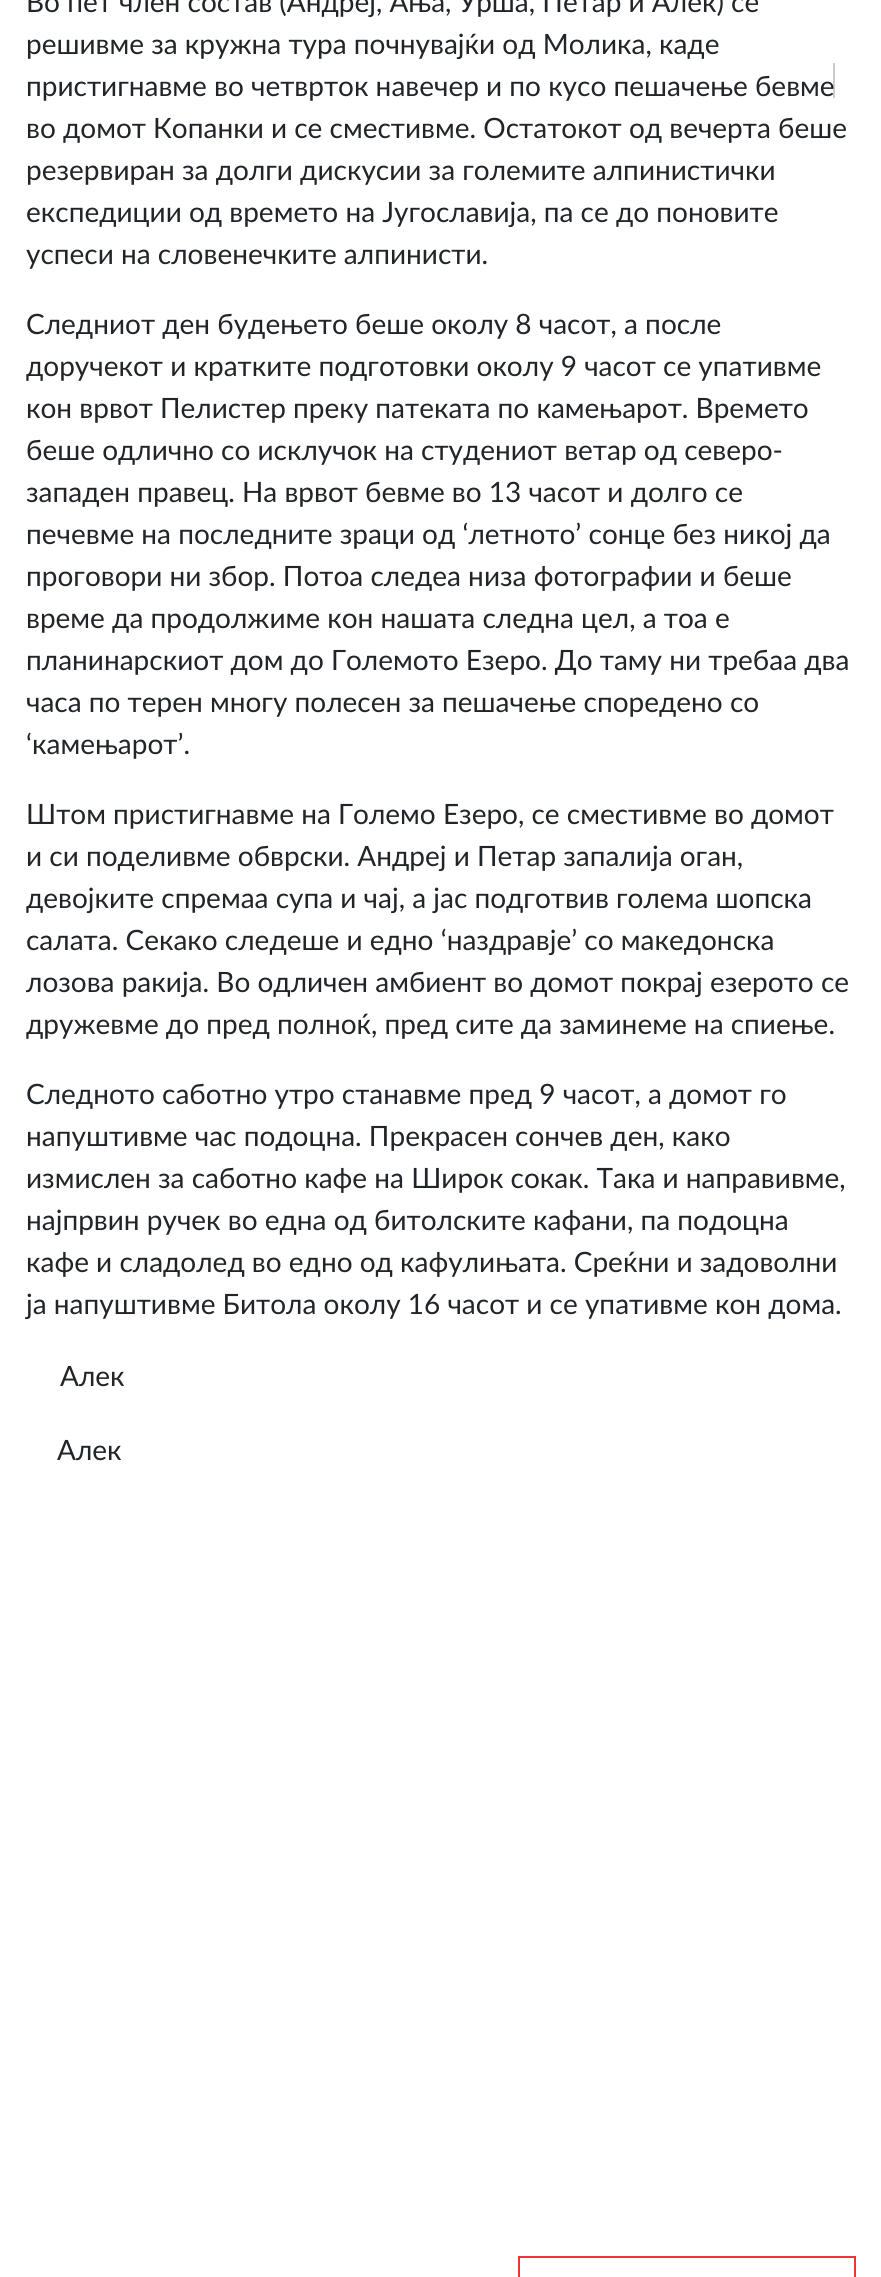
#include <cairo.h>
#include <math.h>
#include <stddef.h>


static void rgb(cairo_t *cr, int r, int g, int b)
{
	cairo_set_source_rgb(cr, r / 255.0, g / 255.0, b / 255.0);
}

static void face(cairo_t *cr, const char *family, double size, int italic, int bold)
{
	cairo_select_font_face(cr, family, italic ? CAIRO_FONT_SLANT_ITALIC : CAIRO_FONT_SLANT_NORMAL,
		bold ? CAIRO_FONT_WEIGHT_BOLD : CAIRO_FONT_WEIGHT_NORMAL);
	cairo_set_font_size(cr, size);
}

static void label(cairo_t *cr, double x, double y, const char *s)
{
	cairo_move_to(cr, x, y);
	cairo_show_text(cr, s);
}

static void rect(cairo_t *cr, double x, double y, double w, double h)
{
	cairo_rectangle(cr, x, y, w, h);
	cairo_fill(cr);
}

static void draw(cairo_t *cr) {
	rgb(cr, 255, 255, 255);
	cairo_paint(cr);
	face(cr, "Lato", 28, 0, 0);
	rgb(cr, 33, 37, 41);
	label(cr, 26, 12, "Во пет член состав (Андреј, Ања, Урша, Петар и Алек) се");
	label(cr, 26, 54, "решивме за кружна тура почнувајќи од Молика, каде");
	label(cr, 26, 96, "пристигнавме во четврток навечер и по кусо пешачење бевме");
	label(cr, 26, 138, "во домот Копанки и се сместивме. Остатокот од вечерта беше");
	label(cr, 26, 180, "резервиран за долги дискусии за големите алпинистички");
	label(cr, 26, 222, "експедиции од времето на Југославија, па се до поновите");
	label(cr, 26, 264, "успеси на словенечките алпинисти.");
	label(cr, 26, 334, "Следниот ден будењето беше околу 8 часот, а после");
	label(cr, 26, 376, "доручекот и кратките подготовки околу 9 часот се упативме");
	label(cr, 26, 418, "кон врвот Пелистер преку патеката по камењарот. Времето");
	label(cr, 26, 460, "беше одлично со исклучок на студениот ветар од северо-");
	label(cr, 26, 502, "западен правец. На врвот бевме во 13 часот и долго се");
	label(cr, 26, 544, "печевме на последните зраци од ‘летното’ сонце без никој да");
	label(cr, 26, 586, "проговори ни збор. Потоа следеа низа фотографии и беше");
	label(cr, 26, 628, "време да продолжиме кон нашата следна цел, а тоа е");
	label(cr, 26, 670, "планинарскиот дом до Големото Езеро. До таму ни требаа два");
	label(cr, 26, 712, "часа по терен многу полесен за пешачење споредено со");
	label(cr, 26, 754, "‘камењарот’.");
	label(cr, 26, 824, "Штом пристигнавме на Големо Езеро, се сместивме во домот");
	label(cr, 26, 866, "и си поделивме обврски. Андреј и Петар запалија оган,");
	label(cr, 26, 908, "девојките спремаа супа и чај, а јас подготвив голема шопска");
	label(cr, 26, 950, "салата. Секако следеше и едно ‘наздравје’ со македонска");
	label(cr, 26, 992, "лозова ракија. Во одличен амбиент во домот покрај езерото се");
	label(cr, 26, 1034, "дружевме до пред полноќ, пред сите да заминеме на спиење.");
	label(cr, 26, 1104, "Следното саботно утро станавме пред 9 часот, а домот го");
	label(cr, 26, 1146, "напуштивме час подоцна. Прекрасен сончев ден, како");
	label(cr, 26, 1188, "измислен за саботно кафе на Широк сокак. Така и направивме,");
	label(cr, 26, 1230, "најпрвин ручек во една од битолските кафани, па подоцна");
	label(cr, 26, 1272, "кафе и сладолед во едно од кафулињата. Среќни и задоволни");
	label(cr, 26, 1314, "ја напуштивме Битола околу 16 часот и се упативме кон дома.");
	label(cr, 60, 1386, "Алек");
	label(cr, 57, 1460, "Алек");
	cairo_rectangle(cr, 519, 2257, 336, 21);
	rgb(cr, 243, 51, 51);
	cairo_stroke(cr);
	cairo_set_source_rgba(cr, 0.004, 0.004, 0.004, 0.2);
	rect(cr, 833, 63, 2, 35);
}

int main(void) {
	cairo_surface_t *surface = cairo_image_surface_create(CAIRO_FORMAT_RGB24, 881, 2277);
	cairo_t *cr = cairo_create(surface);
	cairo_font_options_t *options = cairo_font_options_create();
	cairo_font_options_set_hint_metrics(options, CAIRO_HINT_METRICS_OFF);
	cairo_font_options_set_hint_style(options, CAIRO_HINT_STYLE_NONE);
	cairo_set_font_options(cr, options);
	cairo_set_miter_limit(cr, 4);
	draw(cr);
	cairo_surface_write_to_png(surface, "render.png");
	cairo_font_options_destroy(options);
	cairo_destroy(cr);
	cairo_surface_destroy(surface);
	return 0;
}
